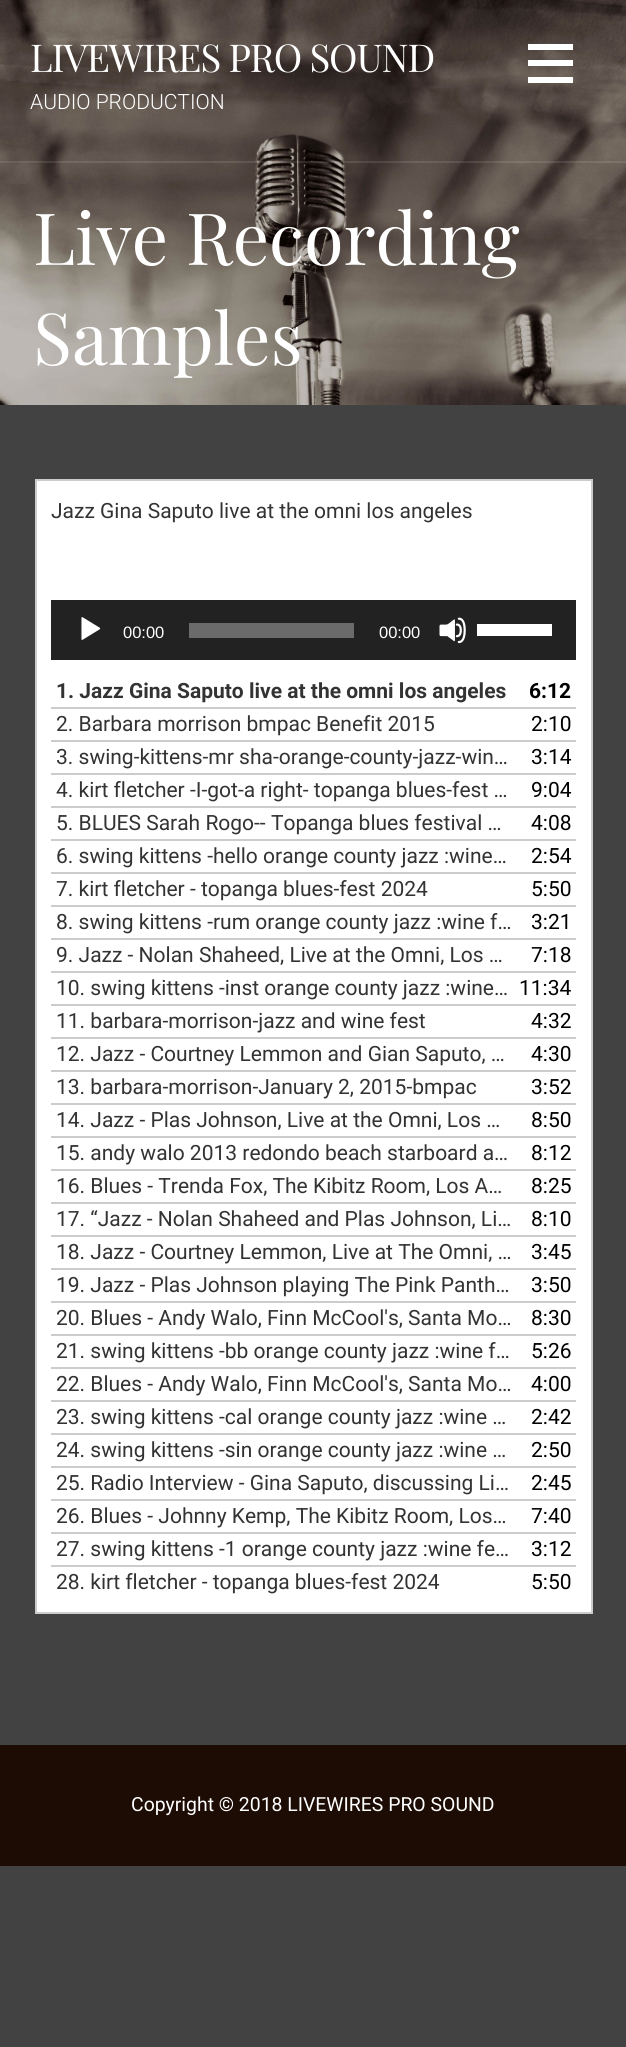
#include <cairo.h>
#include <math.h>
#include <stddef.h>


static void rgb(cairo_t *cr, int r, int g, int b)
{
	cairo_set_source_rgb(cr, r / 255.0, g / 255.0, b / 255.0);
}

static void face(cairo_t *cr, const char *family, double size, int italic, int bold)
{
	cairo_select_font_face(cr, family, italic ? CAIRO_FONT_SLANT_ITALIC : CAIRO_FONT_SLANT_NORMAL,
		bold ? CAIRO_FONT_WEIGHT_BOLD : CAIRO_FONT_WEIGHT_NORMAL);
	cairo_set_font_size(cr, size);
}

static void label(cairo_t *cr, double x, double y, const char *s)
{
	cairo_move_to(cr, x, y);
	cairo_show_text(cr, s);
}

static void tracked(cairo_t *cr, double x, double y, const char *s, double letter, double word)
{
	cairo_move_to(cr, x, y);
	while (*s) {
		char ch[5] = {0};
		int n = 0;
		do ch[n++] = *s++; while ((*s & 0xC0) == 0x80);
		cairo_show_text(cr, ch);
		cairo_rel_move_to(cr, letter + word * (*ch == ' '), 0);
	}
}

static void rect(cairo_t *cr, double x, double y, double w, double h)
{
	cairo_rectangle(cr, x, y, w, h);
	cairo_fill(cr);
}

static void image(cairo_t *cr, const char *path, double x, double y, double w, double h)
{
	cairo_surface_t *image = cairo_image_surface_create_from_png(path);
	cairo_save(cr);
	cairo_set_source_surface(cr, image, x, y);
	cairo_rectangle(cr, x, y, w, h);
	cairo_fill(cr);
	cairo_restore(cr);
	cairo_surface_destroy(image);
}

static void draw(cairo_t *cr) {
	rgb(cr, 66, 66, 66);
	cairo_paint(cr);
	image(cr, "image0.png", 0, 0, 626, 405);
	cairo_set_source_rgba(cr, 1, 1, 1, 0.1);
	rect(cr, 0, 161, 626, 2);
	face(cr, "Playfair Display", 38.4, 0, 0);
	rgb(cr, 255, 255, 255);
	tracked(cr, 30, 72, "LIVEWIRES PRO SOUND", -1.1, 0);
	face(cr, "Roboto Light", 21, 0, 0);
	label(cr, 30, 109, "AUDIO PRODUCTION");
	rect(cr, 528, 44, 45, 6);
	rect(cr, 528, 60, 45, 6);
	rect(cr, 528, 77, 45, 6);
	face(cr, "Playfair Display", 72, 0, 0);
	label(cr, 33, 265, "Live Recording");
	label(cr, 33, 365, "Samples");
	cairo_rectangle(cr, 36, 480, 556, 1133);
	cairo_fill_preserve(cr);
	rgb(cr, 204, 204, 204);
	cairo_stroke(cr);
	face(cr, "Roboto", 21, 0, 0);
	rgb(cr, 51, 51, 51);
	label(cr, 51, 518, "Jazz Gina Saputo live at the omni los angeles");
	rgb(cr, 34, 34, 34);
	rect(cr, 51, 600, 525, 60);
	image(cr, "image1.png", 81, 617, 20, 23);
	face(cr, "Liberation Sans", 16.5, 0, 0);
	rgb(cr, 255, 255, 255);
	label(cr, 123, 638, "00:00");
	rgb(cr, 107, 107, 107);
	rect(cr, 189, 623, 165, 15);
	rgb(cr, 255, 255, 255);
	label(cr, 379, 638, "00:00");
	image(cr, "image2.png", 439, 617, 27, 27);
	rect(cr, 477, 624, 75, 12);
	rgb(cr, 204, 204, 204);
	rect(cr, 51, 707, 525, 2);
	face(cr, "Roboto", 21, 0, 1);
	rgb(cr, 51, 51, 51);
	label(cr, 56, 698, "1. Jazz Gina Saputo live at the omni los angeles");
	rgb(cr, 0, 0, 0);
	label(cr, 529, 698, "6:12");
	rgb(cr, 204, 204, 204);
	rect(cr, 51, 740, 525, 2);
	face(cr, "Roboto", 21, 0, 0);
	rgb(cr, 51, 51, 51);
	label(cr, 56, 731, "2. Barbara morrison bmpac Benefit 2015");
	rgb(cr, 0, 0, 0);
	label(cr, 531, 731, "2:10");
	rgb(cr, 204, 204, 204);
	rect(cr, 51, 773, 525, 2);
	rgb(cr, 51, 51, 51);
	label(cr, 56, 764, "3. swing-kittens-mr sha-orange-county-jazz-win…");
	rgb(cr, 0, 0, 0);
	label(cr, 531, 764, "3:14");
	rgb(cr, 204, 204, 204);
	rect(cr, 51, 806, 525, 2);
	rgb(cr, 51, 51, 51);
	label(cr, 56, 797, "4. kirt fletcher -I-got-a right- topanga blues-fest …");
	rgb(cr, 0, 0, 0);
	label(cr, 531, 797, "9:04");
	rgb(cr, 204, 204, 204);
	rect(cr, 51, 839, 525, 2);
	rgb(cr, 51, 51, 51);
	label(cr, 56, 830, "5. BLUES Sarah Rogo-- Topanga blues festival …");
	rgb(cr, 0, 0, 0);
	label(cr, 531, 830, "4:08");
	rgb(cr, 204, 204, 204);
	rect(cr, 51, 872, 525, 2);
	rgb(cr, 51, 51, 51);
	label(cr, 56, 863, "6. swing kittens -hello orange county jazz :wine…");
	rgb(cr, 0, 0, 0);
	label(cr, 531, 863, "2:54");
	rgb(cr, 204, 204, 204);
	rect(cr, 51, 905, 525, 2);
	rgb(cr, 51, 51, 51);
	label(cr, 56, 896, "7. kirt fletcher - topanga blues-fest 2024");
	rgb(cr, 0, 0, 0);
	label(cr, 531, 896, "5:50");
	rgb(cr, 204, 204, 204);
	rect(cr, 51, 938, 525, 2);
	rgb(cr, 51, 51, 51);
	label(cr, 56, 929, "8. swing kittens -rum orange county jazz :wine f…");
	rgb(cr, 0, 0, 0);
	label(cr, 531, 929, "3:21");
	rgb(cr, 204, 204, 204);
	rect(cr, 51, 971, 525, 2);
	rgb(cr, 51, 51, 51);
	label(cr, 56, 962, "9. Jazz - Nolan Shaheed, Live at the Omni, Los …");
	rgb(cr, 0, 0, 0);
	label(cr, 531, 962, "7:18");
	rgb(cr, 204, 204, 204);
	rect(cr, 51, 1004, 525, 2);
	rgb(cr, 51, 51, 51);
	label(cr, 56, 995, "10. swing kittens -inst orange county jazz :wine…");
	rgb(cr, 0, 0, 0);
	label(cr, 519, 995, "11:34");
	rgb(cr, 204, 204, 204);
	rect(cr, 51, 1037, 525, 2);
	rgb(cr, 51, 51, 51);
	label(cr, 56, 1028, "11. barbara-morrison-jazz and wine fest");
	rgb(cr, 0, 0, 0);
	label(cr, 531, 1028, "4:32");
	rgb(cr, 204, 204, 204);
	rect(cr, 51, 1070, 525, 2);
	rgb(cr, 51, 51, 51);
	label(cr, 56, 1061, "12. Jazz - Courtney Lemmon and Gian Saputo, …");
	rgb(cr, 0, 0, 0);
	label(cr, 531, 1061, "4:30");
	rgb(cr, 204, 204, 204);
	rect(cr, 51, 1103, 525, 2);
	rgb(cr, 51, 51, 51);
	label(cr, 56, 1094, "13. barbara-morrison-January 2, 2015-bmpac");
	rgb(cr, 0, 0, 0);
	label(cr, 531, 1094, "3:52");
	rgb(cr, 204, 204, 204);
	rect(cr, 51, 1136, 525, 2);
	rgb(cr, 51, 51, 51);
	label(cr, 56, 1127, "14. Jazz - Plas Johnson, Live at the Omni, Los …");
	rgb(cr, 0, 0, 0);
	label(cr, 531, 1127, "8:50");
	rgb(cr, 204, 204, 204);
	rect(cr, 51, 1169, 525, 2);
	rgb(cr, 51, 51, 51);
	label(cr, 56, 1160, "15. andy walo 2013 redondo beach starboard a…");
	rgb(cr, 0, 0, 0);
	label(cr, 531, 1160, "8:12");
	rgb(cr, 204, 204, 204);
	rect(cr, 51, 1202, 525, 2);
	rgb(cr, 51, 51, 51);
	label(cr, 56, 1193, "16. Blues - Trenda Fox, The Kibitz Room, Los A…");
	rgb(cr, 0, 0, 0);
	label(cr, 531, 1193, "8:25");
	rgb(cr, 204, 204, 204);
	rect(cr, 51, 1235, 525, 2);
	rgb(cr, 51, 51, 51);
	label(cr, 56, 1226, "17. “Jazz - Nolan Shaheed and Plas Johnson, Li…");
	rgb(cr, 0, 0, 0);
	label(cr, 531, 1226, "8:10");
	rgb(cr, 204, 204, 204);
	rect(cr, 51, 1268, 525, 2);
	rgb(cr, 51, 51, 51);
	label(cr, 56, 1259, "18. Jazz - Courtney Lemmon, Live at The Omni, …");
	rgb(cr, 0, 0, 0);
	label(cr, 531, 1259, "3:45");
	rgb(cr, 204, 204, 204);
	rect(cr, 51, 1301, 525, 2);
	rgb(cr, 51, 51, 51);
	label(cr, 56, 1292, "19. Jazz - Plas Johnson playing The Pink Panth…");
	rgb(cr, 0, 0, 0);
	label(cr, 531, 1292, "3:50");
	rgb(cr, 204, 204, 204);
	rect(cr, 51, 1334, 525, 2);
	rgb(cr, 51, 51, 51);
	label(cr, 56, 1325, "20. Blues - Andy Walo, Finn McCool's, Santa Mo…");
	rgb(cr, 0, 0, 0);
	label(cr, 531, 1325, "8:30");
	rgb(cr, 204, 204, 204);
	rect(cr, 51, 1367, 525, 2);
	rgb(cr, 51, 51, 51);
	label(cr, 56, 1358, "21. swing kittens -bb orange county jazz :wine f…");
	rgb(cr, 0, 0, 0);
	label(cr, 531, 1358, "5:26");
	rgb(cr, 204, 204, 204);
	rect(cr, 51, 1400, 525, 2);
	rgb(cr, 51, 51, 51);
	label(cr, 56, 1391, "22. Blues - Andy Walo, Finn McCool's, Santa Mo…");
	rgb(cr, 0, 0, 0);
	label(cr, 531, 1391, "4:00");
	rgb(cr, 204, 204, 204);
	rect(cr, 51, 1433, 525, 2);
	rgb(cr, 51, 51, 51);
	label(cr, 56, 1424, "23. swing kittens -cal orange county jazz :wine …");
	rgb(cr, 0, 0, 0);
	label(cr, 531, 1424, "2:42");
	rgb(cr, 204, 204, 204);
	rect(cr, 51, 1466, 525, 2);
	rgb(cr, 51, 51, 51);
	label(cr, 56, 1457, "24. swing kittens -sin orange county jazz :wine …");
	rgb(cr, 0, 0, 0);
	label(cr, 531, 1457, "2:50");
	rgb(cr, 204, 204, 204);
	rect(cr, 51, 1499, 525, 2);
	rgb(cr, 51, 51, 51);
	label(cr, 56, 1490, "25. Radio Interview - Gina Saputo, discussing Li…");
	rgb(cr, 0, 0, 0);
	label(cr, 531, 1490, "2:45");
	rgb(cr, 204, 204, 204);
	rect(cr, 51, 1532, 525, 2);
	rgb(cr, 51, 51, 51);
	label(cr, 56, 1523, "26. Blues - Johnny Kemp, The Kibitz Room, Los…");
	rgb(cr, 0, 0, 0);
	label(cr, 531, 1523, "7:40");
	rgb(cr, 204, 204, 204);
	rect(cr, 51, 1565, 525, 2);
	rgb(cr, 51, 51, 51);
	label(cr, 56, 1556, "27. swing kittens -1 orange county jazz :wine fe…");
	rgb(cr, 0, 0, 0);
	label(cr, 531, 1556, "3:12");
	rgb(cr, 51, 51, 51);
	label(cr, 56, 1589, "28. kirt fletcher - topanga blues-fest 2024");
	rgb(cr, 0, 0, 0);
	label(cr, 531, 1589, "5:50");
	rgb(cr, 28, 12, 4);
	rect(cr, 0, 1745, 626, 121);
	face(cr, "Roboto", 19.4, 0, 0);
	rgb(cr, 255, 255, 255);
	label(cr, 131, 1811, "Copyright © 2018 LIVEWIRES PRO SOUND");
}

int main(void) {
	cairo_surface_t *surface = cairo_image_surface_create(CAIRO_FORMAT_RGB24, 626, 2047);
	cairo_t *cr = cairo_create(surface);
	cairo_font_options_t *options = cairo_font_options_create();
	cairo_font_options_set_hint_metrics(options, CAIRO_HINT_METRICS_OFF);
	cairo_font_options_set_hint_style(options, CAIRO_HINT_STYLE_NONE);
	cairo_set_font_options(cr, options);
	cairo_set_miter_limit(cr, 4);
	draw(cr);
	cairo_surface_write_to_png(surface, "render.png");
	cairo_font_options_destroy(options);
	cairo_destroy(cr);
	cairo_surface_destroy(surface);
	return 0;
}
